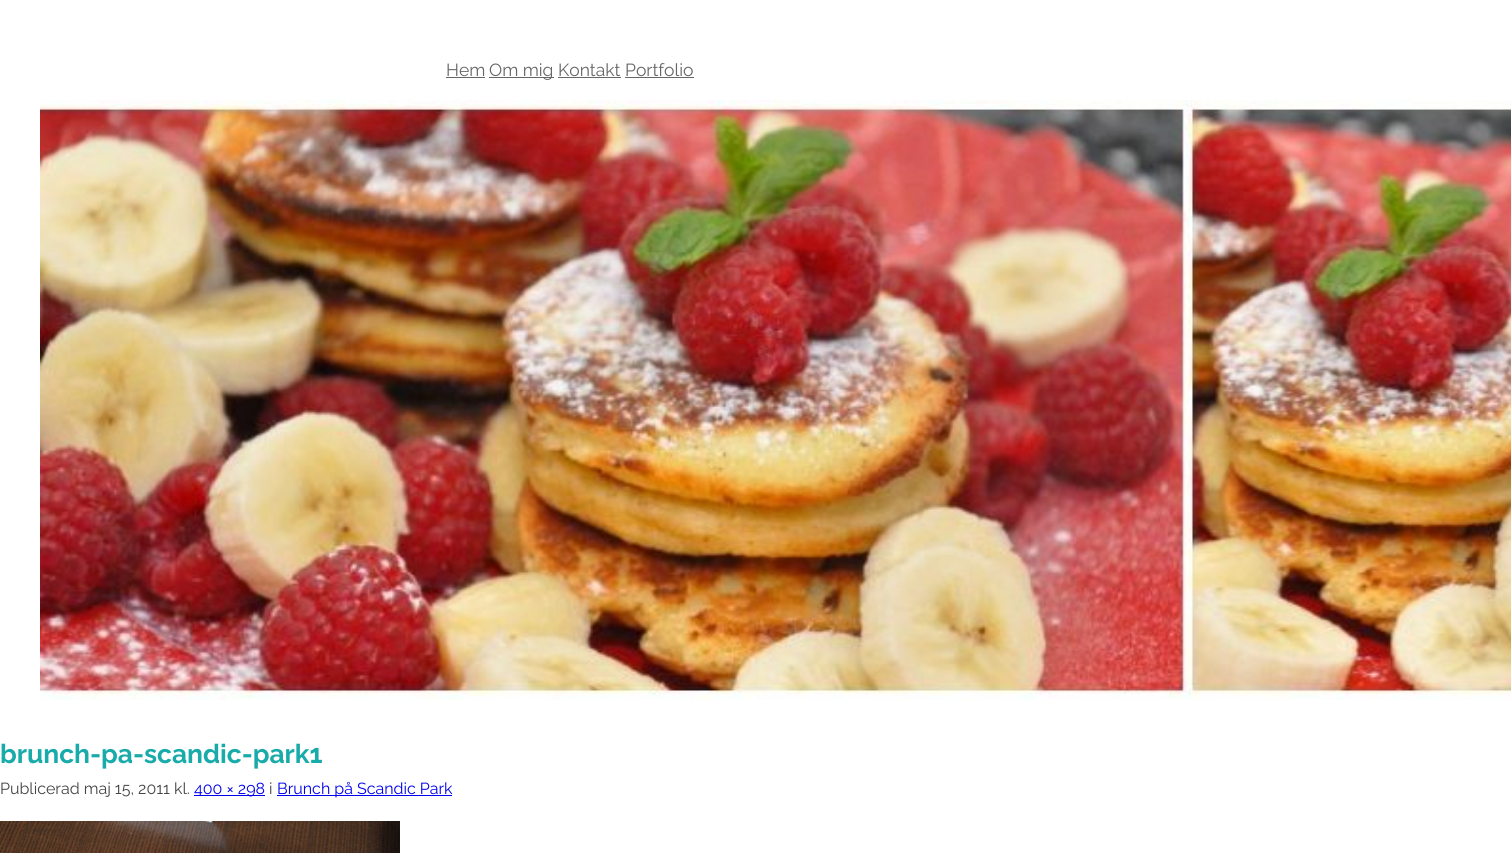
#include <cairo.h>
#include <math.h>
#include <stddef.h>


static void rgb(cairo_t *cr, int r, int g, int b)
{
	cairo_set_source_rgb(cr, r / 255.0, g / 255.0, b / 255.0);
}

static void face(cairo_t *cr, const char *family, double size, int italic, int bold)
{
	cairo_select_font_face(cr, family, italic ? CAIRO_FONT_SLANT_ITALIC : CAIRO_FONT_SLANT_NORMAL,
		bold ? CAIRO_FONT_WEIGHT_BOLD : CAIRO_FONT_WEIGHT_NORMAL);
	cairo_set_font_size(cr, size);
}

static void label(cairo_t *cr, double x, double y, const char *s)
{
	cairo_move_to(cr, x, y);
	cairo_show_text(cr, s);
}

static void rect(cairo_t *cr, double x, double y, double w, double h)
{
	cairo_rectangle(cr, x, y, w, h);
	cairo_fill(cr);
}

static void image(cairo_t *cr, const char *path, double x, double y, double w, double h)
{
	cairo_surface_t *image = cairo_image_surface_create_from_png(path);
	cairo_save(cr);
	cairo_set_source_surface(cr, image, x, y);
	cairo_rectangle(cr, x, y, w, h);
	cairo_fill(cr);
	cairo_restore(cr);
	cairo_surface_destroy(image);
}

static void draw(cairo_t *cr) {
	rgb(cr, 255, 255, 255);
	cairo_paint(cr);
	face(cr, "Raleway", 17.5, 0, 0);
	rgb(cr, 102, 102, 102);
	label(cr, 446, 76, "Hem");
	rect(cr, 446, 77, 39, 1);
	rect(cr, 489, 77, 65, 1);
	label(cr, 489, 76, "Om mig");
	label(cr, 558, 76, "Kontakt");
	rect(cr, 558, 77, 63, 1);
	label(cr, 625, 76, "Portfolio");
	rect(cr, 625, 77, 69, 1);
	image(cr, "image0.png", 40, 100, 1471, 600);
	face(cr, "Raleway", 26.4, 0, 1);
	rgb(cr, 25, 170, 170);
	label(cr, 0, 763, "brunch-pa-scandic-park1");
	face(cr, "Raleway", 16, 0, 0);
	rgb(cr, 68, 68, 68);
	label(cr, 0, 794, "Publicerad maj 15, 2011 kl.");
	rgb(cr, 0, 0, 238);
	rect(cr, 194, 795, 71, 1);
	label(cr, 194, 794, "400 × 298");
	rgb(cr, 68, 68, 68);
	label(cr, 269, 794, "i");
	rgb(cr, 0, 0, 238);
	rect(cr, 277, 795, 175, 1);
	label(cr, 277, 794, "Brunch på Scandic Park");
	image(cr, "image1.png", 0, 821, 400, 32);
}

int main(void) {
	cairo_surface_t *surface = cairo_image_surface_create(CAIRO_FORMAT_RGB24, 1511, 853);
	cairo_t *cr = cairo_create(surface);
	cairo_font_options_t *options = cairo_font_options_create();
	cairo_font_options_set_hint_metrics(options, CAIRO_HINT_METRICS_OFF);
	cairo_font_options_set_hint_style(options, CAIRO_HINT_STYLE_NONE);
	cairo_set_font_options(cr, options);
	cairo_set_miter_limit(cr, 4);
	draw(cr);
	cairo_surface_write_to_png(surface, "render.png");
	cairo_font_options_destroy(options);
	cairo_destroy(cr);
	cairo_surface_destroy(surface);
	return 0;
}
